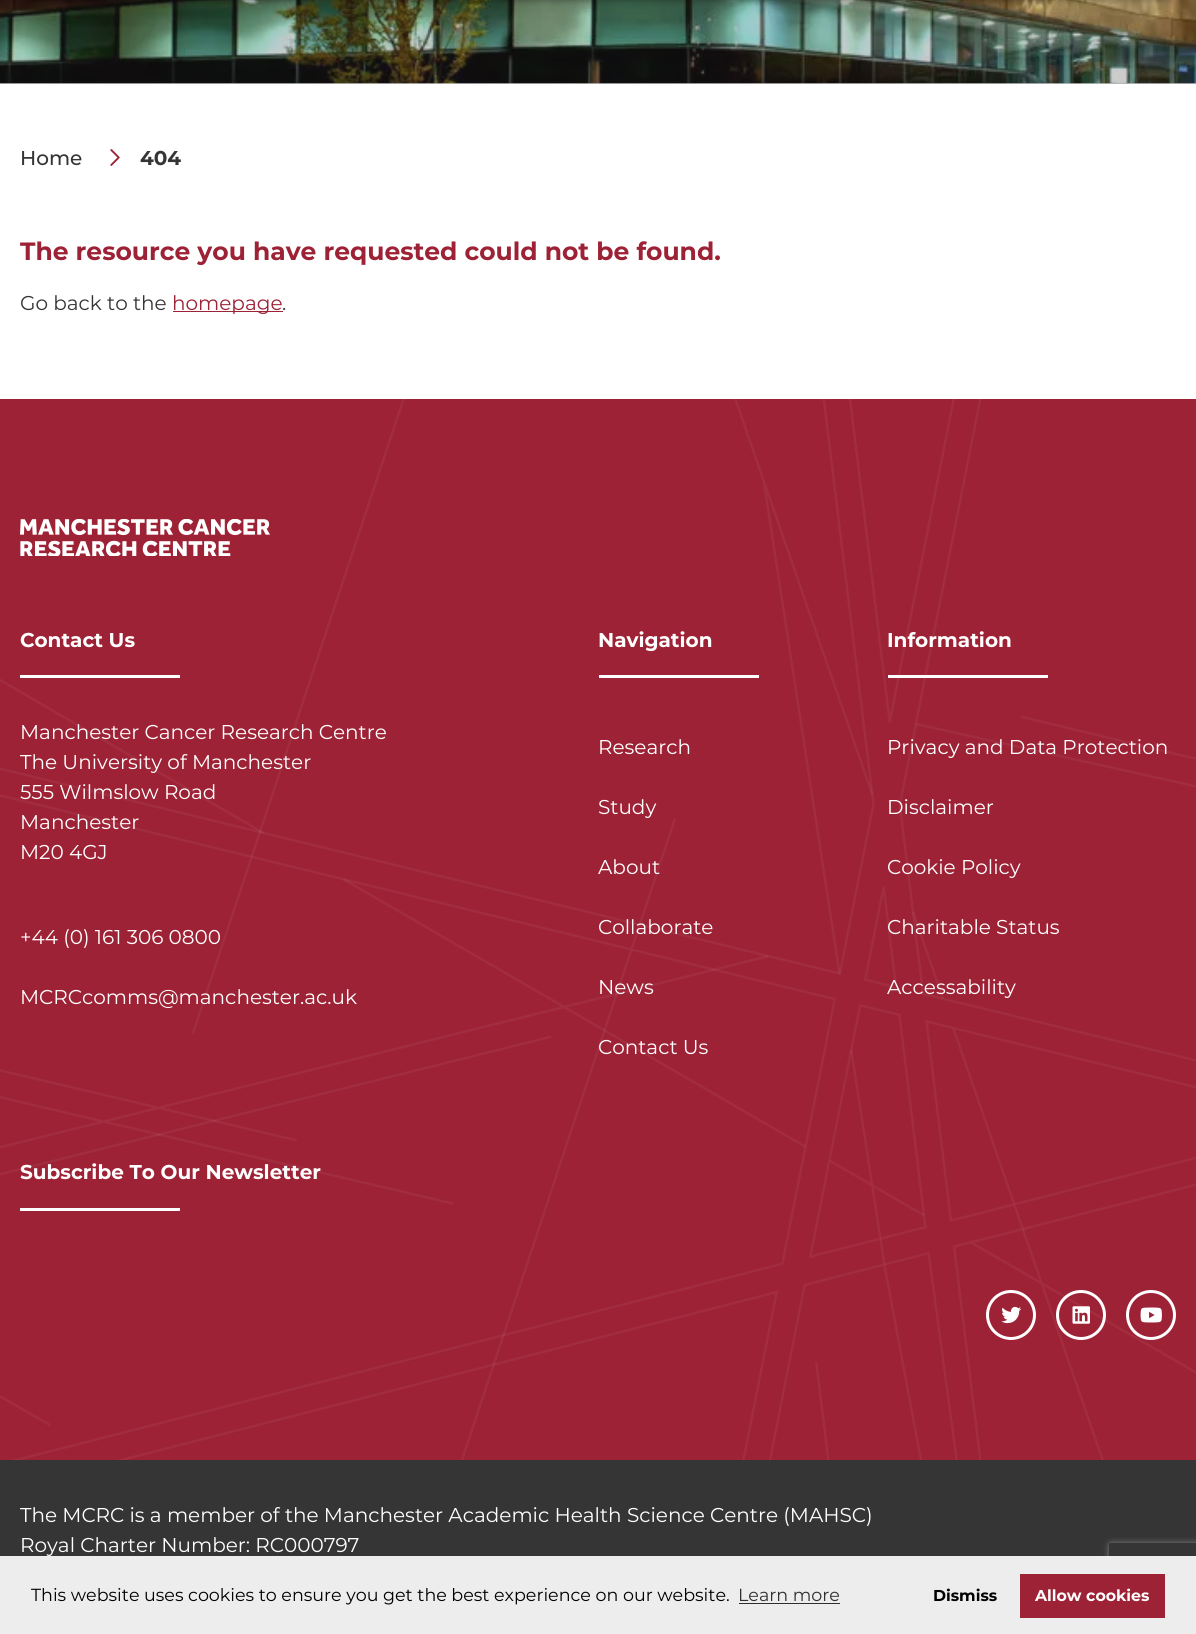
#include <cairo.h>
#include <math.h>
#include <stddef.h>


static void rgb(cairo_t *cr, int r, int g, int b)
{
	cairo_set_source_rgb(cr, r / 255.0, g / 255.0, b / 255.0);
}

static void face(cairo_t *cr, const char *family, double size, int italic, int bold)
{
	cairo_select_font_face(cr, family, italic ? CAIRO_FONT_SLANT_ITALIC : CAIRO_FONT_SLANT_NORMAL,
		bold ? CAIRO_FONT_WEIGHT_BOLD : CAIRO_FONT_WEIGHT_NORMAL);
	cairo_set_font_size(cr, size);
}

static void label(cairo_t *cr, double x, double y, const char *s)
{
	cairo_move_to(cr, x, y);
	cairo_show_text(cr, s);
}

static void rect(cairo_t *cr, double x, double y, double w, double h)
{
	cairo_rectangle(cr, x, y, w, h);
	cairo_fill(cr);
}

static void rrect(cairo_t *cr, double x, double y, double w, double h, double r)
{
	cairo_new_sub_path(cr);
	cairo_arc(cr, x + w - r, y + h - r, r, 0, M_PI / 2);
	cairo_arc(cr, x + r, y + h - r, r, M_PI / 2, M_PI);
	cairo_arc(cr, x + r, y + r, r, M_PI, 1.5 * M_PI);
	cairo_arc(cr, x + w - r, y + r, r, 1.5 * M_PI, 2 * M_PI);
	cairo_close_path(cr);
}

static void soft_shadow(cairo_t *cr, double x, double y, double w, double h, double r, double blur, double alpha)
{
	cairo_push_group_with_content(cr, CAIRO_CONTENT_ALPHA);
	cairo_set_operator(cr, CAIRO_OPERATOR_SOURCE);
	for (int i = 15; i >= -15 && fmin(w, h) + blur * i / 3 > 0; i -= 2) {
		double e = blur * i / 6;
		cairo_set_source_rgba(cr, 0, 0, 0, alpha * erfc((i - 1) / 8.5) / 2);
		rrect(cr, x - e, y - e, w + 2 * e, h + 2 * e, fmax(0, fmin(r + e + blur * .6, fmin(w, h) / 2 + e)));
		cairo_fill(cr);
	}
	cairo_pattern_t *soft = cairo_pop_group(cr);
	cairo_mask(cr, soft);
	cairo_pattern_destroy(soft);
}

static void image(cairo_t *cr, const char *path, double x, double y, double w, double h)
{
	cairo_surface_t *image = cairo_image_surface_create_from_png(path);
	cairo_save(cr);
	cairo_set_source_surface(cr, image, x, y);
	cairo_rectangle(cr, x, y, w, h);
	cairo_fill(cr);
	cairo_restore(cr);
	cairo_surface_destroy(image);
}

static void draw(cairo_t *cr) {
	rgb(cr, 255, 255, 255);
	cairo_paint(cr);
	rgb(cr, 196, 196, 196);
	rect(cr, 0, 83, 1196, 1);
	image(cr, "image0.png", 0, 0, 1196, 84);
	rgb(cr, 0, 0, 0);
	soft_shadow(cr, 26, -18, 1144, 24, 0, 6, 0.1);
	soft_shadow(cr, 26, -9, 1144, 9, 0, 3, 0.3);
	face(cr, "Montserrat Medium", 20, 0, 0);
	rgb(cr, 53, 53, 53);
	label(cr, 20, 165, "Home");
	image(cr, "image1.png", 110, 149, 10, 17);
	face(cr, "Montserrat", 20, 0, 1);
	label(cr, 140, 165, "404");
	face(cr, "Montserrat", 25, 0, 1);
	rgb(cr, 157, 34, 53);
	label(cr, 20, 260, "The resource you have requested could not be found.");
	face(cr, "Montserrat", 20, 0, 0);
	rgb(cr, 53, 53, 53);
	label(cr, 20, 310, "Go back to the");
	rgb(cr, 157, 34, 53);
	rect(cr, 173, 311, 110, 1);
	label(cr, 172, 310, "homepage");
	rgb(cr, 53, 53, 53);
	label(cr, 282, 310, ".");
	rgb(cr, 157, 34, 53);
	rect(cr, 0, 399, 1196, 1061);
	image(cr, "image2.png", 0, 399, 1196, 1061);
	image(cr, "image3.png", 20, 519, 250, 37);
	face(cr, "Montserrat", 20, 0, 1);
	rgb(cr, 255, 255, 255);
	label(cr, 20, 647, "Contact Us");
	rect(cr, 20, 675, 160, 3);
	face(cr, "Montserrat", 20, 0, 0);
	label(cr, 20, 739, "Manchester Cancer Research Centre");
	label(cr, 20, 769, "The University of Manchester");
	label(cr, 20, 799, "555 Wilmslow Road");
	label(cr, 20, 829, "Manchester");
	label(cr, 20, 859, "M20 4GJ");
	label(cr, 20, 944, "+44 (0) 161 306 0800");
	label(cr, 20, 1004, "MCRCcomms@manchester.ac.uk");
	face(cr, "Montserrat", 20, 0, 1);
	label(cr, 598, 647, "Navigation");
	rect(cr, 599, 675, 160, 3);
	face(cr, "Montserrat", 20, 0, 0);
	label(cr, 598, 754, "Research");
	label(cr, 598, 814, "Study");
	label(cr, 598, 874, "About");
	label(cr, 598, 934, "Collaborate");
	label(cr, 598, 994, "News");
	label(cr, 598, 1054, "Contact Us");
	face(cr, "Montserrat", 20, 0, 1);
	label(cr, 887, 647, "Information");
	rect(cr, 888, 675, 160, 3);
	face(cr, "Montserrat", 20, 0, 0);
	label(cr, 887, 754, "Privacy and Data Protection");
	label(cr, 887, 814, "Disclaimer");
	label(cr, 887, 874, "Cookie Policy");
	label(cr, 887, 934, "Charitable Status");
	label(cr, 887, 994, "Accessability");
	face(cr, "Montserrat", 20, 0, 1);
	label(cr, 20, 1179, "Subscribe To Our Newsletter");
	rect(cr, 20, 1208, 160, 3);
	cairo_new_path(cr);
	cairo_arc(cr, 1011, 1315, 23.5, 0, 2 * M_PI);
	cairo_set_line_width(cr, 3);
	cairo_stroke(cr);
	image(cr, "image4.png", 1001, 1306, 21, 18);
	cairo_arc(cr, 1081, 1315, 23.5, 0, 2 * M_PI);
	cairo_stroke(cr);
	image(cr, "image5.png", 1072, 1306, 18, 18);
	cairo_arc(cr, 1151, 1315, 23.5, 0, 2 * M_PI);
	cairo_stroke(cr);
	image(cr, "image6.png", 1140, 1307, 22, 16);
	rgb(cr, 53, 53, 53);
	rect(cr, 0, 1460, 1196, 96);
	face(cr, "Montserrat", 20, 0, 0);
	rgb(cr, 255, 255, 255);
	label(cr, 20, 1522, "The MCRC is a member of the Manchester Academic Health Science Centre (MAHSC)");
	label(cr, 20, 1552, "Royal Charter Number: RC000797");
	cairo_save(cr);
	cairo_set_fill_rule(cr, CAIRO_FILL_RULE_EVEN_ODD);
	cairo_new_path(cr);
	cairo_move_to(cr, 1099, 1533);
	cairo_line_to(cr, 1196, 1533);
	cairo_line_to(cr, 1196, 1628);
	cairo_line_to(cr, 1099, 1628);
	cairo_close_path(cr);
	cairo_move_to(cr, 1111.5, 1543);
	cairo_line_to(cr, 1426.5, 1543);
	cairo_curve_to(cr, 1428, 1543, 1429, 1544, 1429, 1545.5);
	cairo_line_to(cr, 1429, 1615.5);
	cairo_curve_to(cr, 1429, 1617, 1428, 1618, 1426.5, 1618);
	cairo_line_to(cr, 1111.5, 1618);
	cairo_curve_to(cr, 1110, 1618, 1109, 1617, 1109, 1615.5);
	cairo_line_to(cr, 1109, 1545.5);
	cairo_curve_to(cr, 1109, 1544, 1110, 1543, 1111.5, 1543);
	cairo_close_path(cr);
	cairo_clip(cr);
	rgb(cr, 128, 128, 128);
	soft_shadow(cr, 1109, 1543, 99, 75, 2.5, 3, 1);
	cairo_restore(cr);
	rgb(cr, 237, 237, 237);
	rect(cr, 0, 1556, 1196, 78);
	face(cr, "Montserrat", 17.5, 0, 0);
	rgb(cr, 0, 0, 0);
	label(cr, 31, 1601, "This website uses cookies to ensure you get the best experience on our website.");
	rgb(cr, 47, 47, 47);
	label(cr, 738, 1601, "Learn more");
	rect(cr, 739, 1603, 101, 1);
	face(cr, "Montserrat", 15.75, 0, 1);
	rgb(cr, 0, 0, 0);
	label(cr, 933, 1601, "Dismiss");
	rgb(cr, 157, 34, 53);
	rect(cr, 1020, 1574, 145, 44);
	rgb(cr, 255, 255, 255);
	label(cr, 1035, 1601, "Allow cookies");
}

int main(void) {
	cairo_surface_t *surface = cairo_image_surface_create(CAIRO_FORMAT_RGB24, 1196, 1634);
	cairo_t *cr = cairo_create(surface);
	cairo_font_options_t *options = cairo_font_options_create();
	cairo_font_options_set_hint_metrics(options, CAIRO_HINT_METRICS_OFF);
	cairo_font_options_set_hint_style(options, CAIRO_HINT_STYLE_NONE);
	cairo_set_font_options(cr, options);
	cairo_set_miter_limit(cr, 4);
	draw(cr);
	cairo_surface_write_to_png(surface, "render.png");
	cairo_font_options_destroy(options);
	cairo_destroy(cr);
	cairo_surface_destroy(surface);
	return 0;
}
